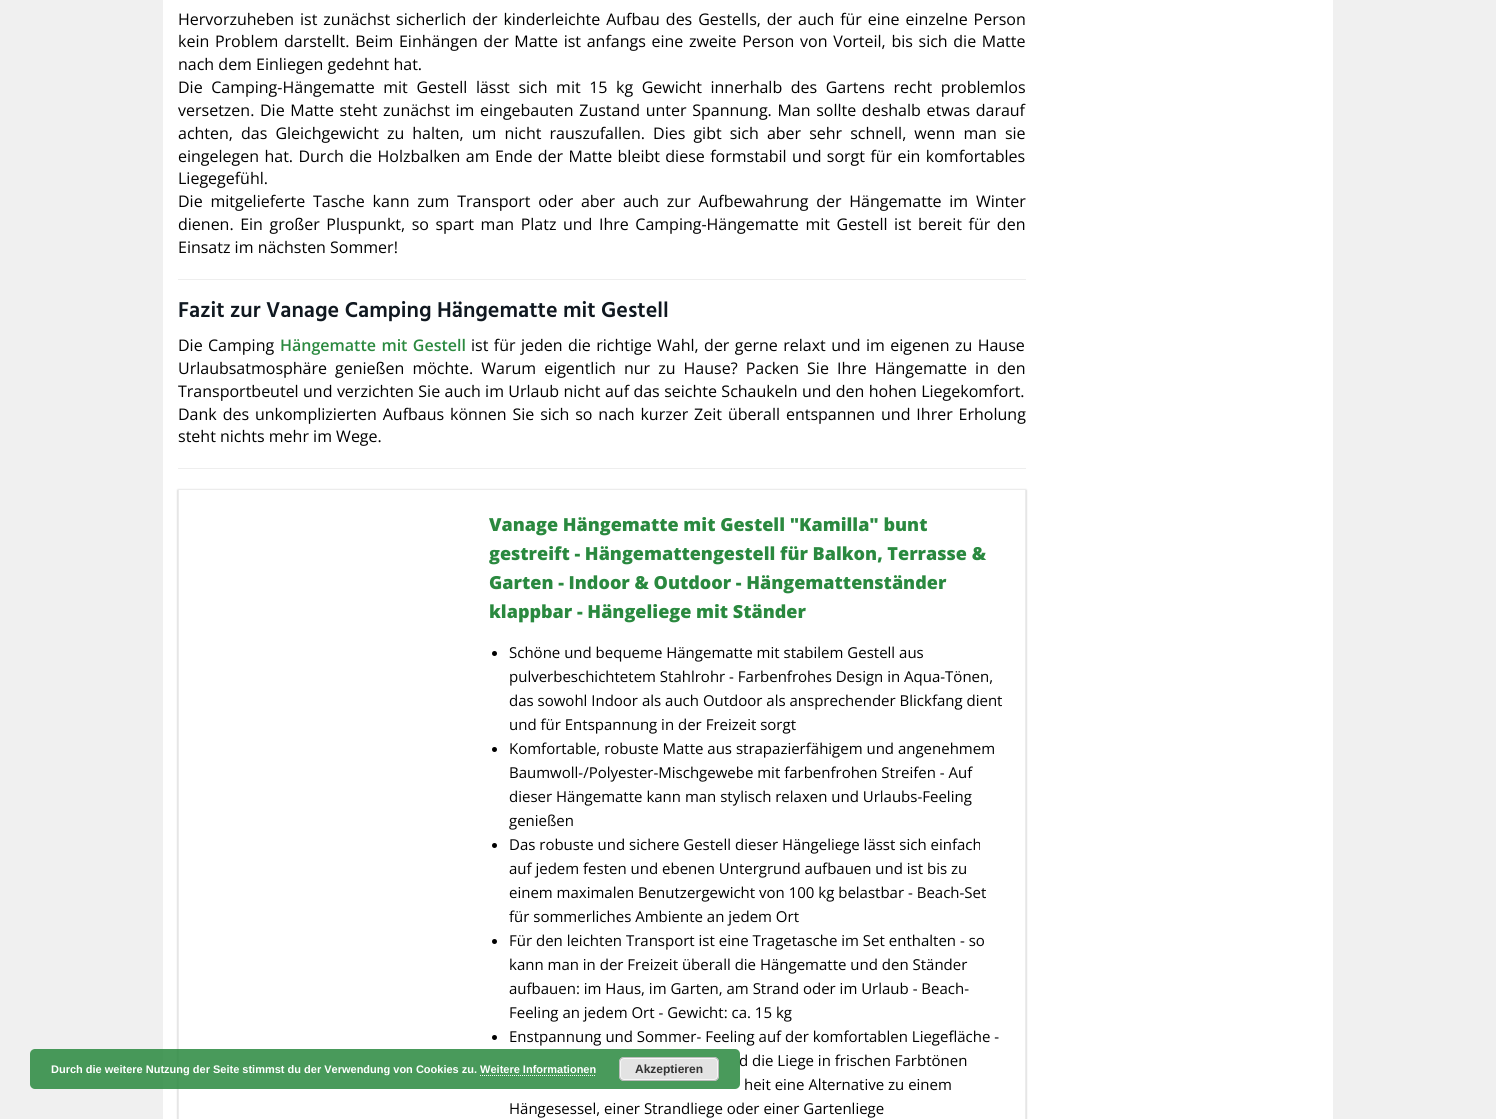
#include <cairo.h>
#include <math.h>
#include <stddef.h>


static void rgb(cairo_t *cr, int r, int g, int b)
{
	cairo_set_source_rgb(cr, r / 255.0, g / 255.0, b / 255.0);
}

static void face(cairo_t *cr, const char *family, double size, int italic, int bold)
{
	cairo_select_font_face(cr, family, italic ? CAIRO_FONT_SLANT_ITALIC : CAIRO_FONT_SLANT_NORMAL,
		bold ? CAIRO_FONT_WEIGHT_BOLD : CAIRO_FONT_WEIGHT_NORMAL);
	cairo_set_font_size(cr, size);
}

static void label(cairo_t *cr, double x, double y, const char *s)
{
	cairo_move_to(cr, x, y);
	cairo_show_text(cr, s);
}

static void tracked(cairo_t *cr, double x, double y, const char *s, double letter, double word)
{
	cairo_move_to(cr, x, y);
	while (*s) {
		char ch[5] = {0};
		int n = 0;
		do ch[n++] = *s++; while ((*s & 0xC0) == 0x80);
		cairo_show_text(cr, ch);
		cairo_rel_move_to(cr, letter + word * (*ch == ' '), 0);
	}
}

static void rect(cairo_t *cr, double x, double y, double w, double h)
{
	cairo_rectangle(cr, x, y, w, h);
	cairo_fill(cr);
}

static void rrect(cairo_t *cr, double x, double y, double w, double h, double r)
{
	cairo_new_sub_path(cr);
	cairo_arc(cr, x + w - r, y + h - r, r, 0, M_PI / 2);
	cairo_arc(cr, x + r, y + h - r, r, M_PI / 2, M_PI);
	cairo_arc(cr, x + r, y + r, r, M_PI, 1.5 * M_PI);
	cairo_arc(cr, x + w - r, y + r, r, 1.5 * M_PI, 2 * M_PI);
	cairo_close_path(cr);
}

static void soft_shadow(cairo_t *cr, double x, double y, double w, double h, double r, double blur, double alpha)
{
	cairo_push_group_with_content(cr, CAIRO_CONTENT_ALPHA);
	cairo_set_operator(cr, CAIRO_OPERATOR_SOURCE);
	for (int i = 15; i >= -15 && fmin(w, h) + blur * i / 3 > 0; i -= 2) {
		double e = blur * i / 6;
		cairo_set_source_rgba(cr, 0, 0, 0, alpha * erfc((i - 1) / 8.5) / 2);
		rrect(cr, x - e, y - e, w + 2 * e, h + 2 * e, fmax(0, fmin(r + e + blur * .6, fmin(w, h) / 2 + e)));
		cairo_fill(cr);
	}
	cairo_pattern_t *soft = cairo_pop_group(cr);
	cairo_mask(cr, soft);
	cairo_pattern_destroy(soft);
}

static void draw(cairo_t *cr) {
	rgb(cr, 240, 240, 240);
	cairo_paint(cr);
	rgb(cr, 255, 255, 255);
	rect(cr, 163, 0, 1170, 1119);
	face(cr, "Open Sans", 16, 0, 0);
	rgb(cr, 0, 0, 0);
	tracked(cr, 178, 25, "Hervorzuheben ist zunächst sicherlich der kinderleichte Aufbau des Gestells, der auch für eine einzelne Person", 0, 1.75);
	tracked(cr, 178, 47, "kein Problem darstellt. Beim Einhängen der Matte ist anfangs eine zweite Person von Vorteil, bis sich die Matte", 0, 1.5);
	label(cr, 178, 70, "nach dem Einliegen gedehnt hat.");
	tracked(cr, 178, 93, "Die Camping-Hängematte mit Gestell lässt sich mit 15 kg Gewicht innerhalb des Gartens recht problemlos", 0, 4.4);
	tracked(cr, 178, 116, "versetzen. Die Matte steht zunächst im eingebauten Zustand unter Spannung. Man sollte deshalb etwas darauf", 0, 1.5);
	tracked(cr, 178, 139, "achten, das Gleichgewicht zu halten, um nicht rauszufallen. Dies gibt sich aber sehr schnell, wenn man sie", 0, 3.9);
	tracked(cr, 178, 162, "eingelegen hat. Durch die Holzbalken am Ende der Matte bleibt diese formstabil und sorgt für ein komfortables", 0, 1.25);
	label(cr, 178, 184, "Liegegefühl.");
	tracked(cr, 178, 207, "Die mitgelieferte Tasche kann zum Transport oder aber auch zur Aufbewahrung der Hängematte im Winter", 0, 3.6);
	tracked(cr, 178, 230, "dienen. Ein großer Pluspunkt, so spart man Platz und Ihre Camping-Hängematte mit Gestell ist bereit für den", 0, 2.4);
	label(cr, 178, 253, "Einsatz im nächsten Sommer!");
	rgb(cr, 238, 238, 238);
	rect(cr, 178, 279, 848, 1);
	face(cr, "Hind SemiBold", 22, 0, 0);
	rgb(cr, 16, 24, 32);
	label(cr, 178, 317, "Fazit zur Vanage Camping Hängematte mit Gestell");
	face(cr, "Open Sans", 16, 0, 0);
	rgb(cr, 0, 0, 0);
	tracked(cr, 178, 351, "Die Camping", 0, 1.25);
	face(cr, "Open Sans SemiBold", 16, 0, 0);
	rgb(cr, 42, 137, 63);
	tracked(cr, 280, 351, "Hängematte mit Gestell", 0, 1.25);
	face(cr, "Open Sans", 16, 0, 0);
	rgb(cr, 0, 0, 0);
	tracked(cr, 471, 351, "ist für jeden die richtige Wahl, der gerne relaxt und im eigenen zu Hause", 0, 1.25);
	tracked(cr, 178, 374, "Urlaubsatmosphäre genießen möchte. Warum eigentlich nur zu Hause? Packen Sie Ihre Hängematte in den", 0, 3.9);
	tracked(cr, 178, 397, "Transportbeutel und verzichten Sie auch im Urlaub nicht auf das seichte Schaukeln und den hohen Liegekomfort.", 0, 0.25);
	tracked(cr, 178, 420, "Dank des unkomplizierten Aufbaus können Sie sich so nach kurzer Zeit überall entspannen und Ihrer Erholung", 0, 1.75);
	label(cr, 178, 442, "steht nichts mehr im Wege.");
	rgb(cr, 238, 238, 238);
	rect(cr, 178, 468, 848, 1);
	cairo_save(cr);
	cairo_set_fill_rule(cr, CAIRO_FILL_RULE_EVEN_ODD);
	cairo_new_path(cr);
	cairo_move_to(cr, 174, 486);
	cairo_line_to(cr, 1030, 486);
	cairo_line_to(cr, 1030, 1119);
	cairo_line_to(cr, 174, 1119);
	cairo_close_path(cr);
	cairo_move_to(cr, 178, 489);
	cairo_line_to(cr, 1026, 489);
	cairo_line_to(cr, 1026, 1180);
	cairo_line_to(cr, 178, 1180);
	cairo_close_path(cr);
	cairo_clip(cr);
	rgb(cr, 0, 0, 0);
	soft_shadow(cr, 178, 490, 848, 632, 0, 1, 0.3);
	cairo_restore(cr);
	cairo_rectangle(cr, 178.5, 489.5, 847, 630);
	rgb(cr, 236, 236, 236);
	cairo_set_line_width(cr, 1);
	cairo_stroke(cr);
	face(cr, "Open Sans ExtraBold", 18, 0, 0);
	rgb(cr, 42, 137, 63);
	label(cr, 489, 531, "Vanage Hängematte mit Gestell \"Kamilla\" bunt");
	label(cr, 489, 560, "gestreift - Hängemattengestell für Balkon, Terrasse &");
	label(cr, 489, 589, "Garten - Indoor & Outdoor - Hängemattenständer");
	label(cr, 489, 618, "klappbar - Hängeliege mit Ständer");
	rgb(cr, 0, 0, 0);
	cairo_new_path(cr);
	cairo_arc(cr, 494.5, 653.5, 2.5, 0, 2 * M_PI);
	cairo_fill(cr);
	face(cr, "Open Sans", 15, 0, 0);
	label(cr, 509, 658, "Schöne und bequeme Hängematte mit stabilem Gestell aus");
	label(cr, 509, 682, "pulverbeschichtetem Stahlrohr - Farbenfrohes Design in Aqua-Tönen,");
	label(cr, 509, 706, "das sowohl Indoor als auch Outdoor als ansprechender Blickfang dient");
	label(cr, 509, 730, "und für Entspannung in der Freizeit sorgt");
	cairo_new_path(cr);
	cairo_arc(cr, 494.5, 749.5, 2.5, 0, 2 * M_PI);
	cairo_fill(cr);
	label(cr, 509, 754, "Komfortable, robuste Matte aus strapazierfähigem und angenehmem");
	label(cr, 509, 778, "Baumwoll-/Polyester-Mischgewebe mit farbenfrohen Streifen - Auf");
	label(cr, 509, 802, "dieser Hängematte kann man stylisch relaxen und Urlaubs-Feeling");
	label(cr, 509, 826, "genießen");
	cairo_new_path(cr);
	cairo_arc(cr, 494.5, 845.5, 2.5, 0, 2 * M_PI);
	cairo_fill(cr);
	label(cr, 509, 850, "Das robuste und sichere Gestell dieser Hängeliege lässt sich einfach");
	label(cr, 509, 874, "auf jedem festen und ebenen Untergrund aufbauen und ist bis zu");
	label(cr, 509, 898, "einem maximalen Benutzergewicht von 100 kg belastbar - Beach-Set");
	label(cr, 509, 922, "für sommerliches Ambiente an jedem Ort");
	cairo_new_path(cr);
	cairo_arc(cr, 494.5, 941.5, 2.5, 0, 2 * M_PI);
	cairo_fill(cr);
	label(cr, 509, 946, "Für den leichten Transport ist eine Tragetasche im Set enthalten - so");
	label(cr, 509, 970, "kann man in der Freizeit überall die Hängematte und den Ständer");
	label(cr, 509, 994, "aufbauen: im Haus, im Garten, am Strand oder im Urlaub - Beach-");
	label(cr, 509, 1018, "Feeling an jedem Ort - Gewicht: ca. 15 kg");
	cairo_new_path(cr);
	cairo_arc(cr, 494.5, 1037.5, 2.5, 0, 2 * M_PI);
	cairo_fill(cr);
	label(cr, 509, 1042, "Enstpannung und Sommer- Feeling auf der komfortablen Liegefläche -");
	label(cr, 739, 1066, "d die Liege in frischen Farbtönen");
	label(cr, 744, 1090, "heit eine Alternative zu einem");
	label(cr, 509, 1114, "Hängesessel, einer Strandliege oder einer Gartenliege");
	cairo_set_source_rgba(cr, 0.165, 0.537, 0.247, 0.85);
	rrect(cr, 30, 1049, 710, 40, 5);
	cairo_fill(cr);
	face(cr, "Liberation Sans", 11, 0, 1);
	rgb(cr, 255, 255, 255);
	label(cr, 51, 1073, "Durch die weitere Nutzung der Seite stimmst du der Verwendung von Cookies zu. Weitere Informationen");
	rgb(cr, 227, 227, 227);
	rrect(cr, 619, 1057, 100, 24, 5);
	cairo_fill(cr);
	rrect(cr, 620.5, 1058.5, 97, 21, 3.5);
	rgb(cr, 246, 246, 246);
	cairo_stroke(cr);
	rrect(cr, 619.5, 1057.5, 99, 23, 4.5);
	rgb(cr, 187, 187, 187);
	cairo_stroke(cr);
	face(cr, "Liberation Sans", 12, 0, 1);
	rgb(cr, 51, 51, 51);
	label(cr, 635, 1073, "Akzeptieren");
	cairo_new_path(cr);
	cairo_move_to(cr, 480, 1075.5);
	cairo_line_to(cr, 596, 1075.5);
	rgb(cr, 255, 255, 255);
	cairo_set_dash(cr, (double[]){1, 1}, 2, 0);
	cairo_stroke(cr);
}

int main(void) {
	cairo_surface_t *surface = cairo_image_surface_create(CAIRO_FORMAT_RGB24, 1496, 1119);
	cairo_t *cr = cairo_create(surface);
	cairo_font_options_t *options = cairo_font_options_create();
	cairo_font_options_set_hint_metrics(options, CAIRO_HINT_METRICS_OFF);
	cairo_font_options_set_hint_style(options, CAIRO_HINT_STYLE_NONE);
	cairo_set_font_options(cr, options);
	cairo_set_miter_limit(cr, 4);
	draw(cr);
	cairo_surface_write_to_png(surface, "render.png");
	cairo_font_options_destroy(options);
	cairo_destroy(cr);
	cairo_surface_destroy(surface);
	return 0;
}
